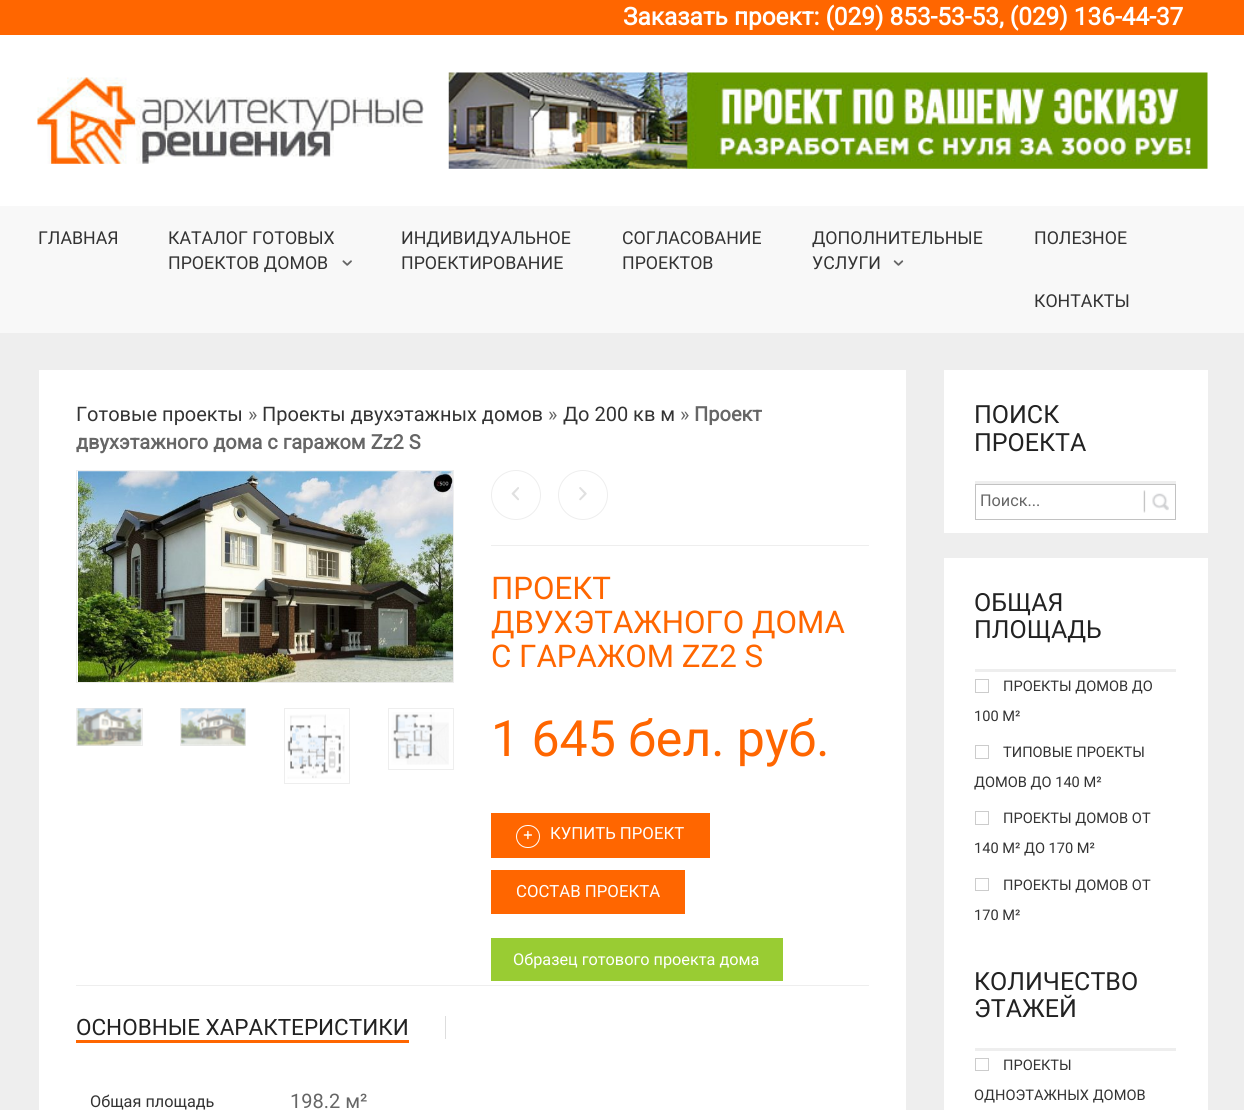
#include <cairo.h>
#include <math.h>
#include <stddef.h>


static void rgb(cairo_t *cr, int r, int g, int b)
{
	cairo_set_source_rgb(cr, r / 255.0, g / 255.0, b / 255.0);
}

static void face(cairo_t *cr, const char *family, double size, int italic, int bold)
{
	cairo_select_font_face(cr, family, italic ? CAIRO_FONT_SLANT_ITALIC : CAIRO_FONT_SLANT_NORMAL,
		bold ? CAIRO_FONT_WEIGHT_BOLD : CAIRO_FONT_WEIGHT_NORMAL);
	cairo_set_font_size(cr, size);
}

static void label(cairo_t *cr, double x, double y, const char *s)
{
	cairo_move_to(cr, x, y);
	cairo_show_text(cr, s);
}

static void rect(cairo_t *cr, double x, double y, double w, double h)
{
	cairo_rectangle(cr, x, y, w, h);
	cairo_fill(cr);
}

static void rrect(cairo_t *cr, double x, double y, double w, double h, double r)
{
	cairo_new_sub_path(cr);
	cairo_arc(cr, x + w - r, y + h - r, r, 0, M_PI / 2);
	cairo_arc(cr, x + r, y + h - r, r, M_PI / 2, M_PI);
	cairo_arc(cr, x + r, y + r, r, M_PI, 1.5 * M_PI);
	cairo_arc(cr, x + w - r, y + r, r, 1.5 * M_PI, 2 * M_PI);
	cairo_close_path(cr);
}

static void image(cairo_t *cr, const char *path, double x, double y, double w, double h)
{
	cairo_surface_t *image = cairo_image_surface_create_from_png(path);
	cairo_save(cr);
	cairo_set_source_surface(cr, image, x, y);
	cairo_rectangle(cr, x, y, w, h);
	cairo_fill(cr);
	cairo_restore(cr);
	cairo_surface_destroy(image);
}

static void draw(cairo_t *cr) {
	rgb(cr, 238, 238, 238);
	cairo_paint(cr);
	rgb(cr, 255, 102, 0);
	rect(cr, 0, 0, 1244, 35);
	face(cr, "Roboto", 24.4, 0, 1);
	rgb(cr, 255, 255, 255);
	label(cr, 623, 25, "Заказать проект: (029) 853-53-53, (029) 136-44-37");
	rect(cr, 0, 35, 1244, 171);
	image(cr, "image0.png", 37, 77, 387, 87);
	image(cr, "image1.png", 448, 72, 760, 97);
	rgb(cr, 248, 248, 248);
	rect(cr, 0, 206, 1244, 127);
	face(cr, "Roboto", 17.75, 0, 0);
	rgb(cr, 51, 51, 51);
	label(cr, 38, 244, "ГЛАВНАЯ");
	label(cr, 168, 244, "КАТАЛОГ ГОТОВЫХ");
	label(cr, 168, 269, "ПРОЕКТОВ ДОМОВ");
	image(cr, "image2.png", 342, 260, 10, 6);
	label(cr, 401, 244, "ИНДИВИДУАЛЬНОЕ");
	label(cr, 401, 269, "ПРОЕКТИРОВАНИЕ");
	label(cr, 622, 244, "СОГЛАСОВАНИЕ");
	label(cr, 622, 269, "ПРОЕКТОВ");
	label(cr, 812, 244, "ДОПОЛНИТЕЛЬНЫЕ");
	label(cr, 812, 269, "УСЛУГИ");
	image(cr, "image3.png", 893, 260, 11, 6);
	label(cr, 1034, 244, "ПОЛЕЗНОЕ");
	label(cr, 1034, 307, "КОНТАКТЫ");
	rgb(cr, 255, 255, 255);
	rect(cr, 39, 370, 867, 740);
	face(cr, "Roboto", 20, 0, 0);
	rgb(cr, 51, 51, 51);
	label(cr, 76, 421, "Готовые проекты");
	rgb(cr, 102, 102, 102);
	label(cr, 248, 421, "»");
	rgb(cr, 51, 51, 51);
	label(cr, 262, 421, "Проекты двухэтажных домов");
	rgb(cr, 102, 102, 102);
	label(cr, 548, 421, "»");
	rgb(cr, 51, 51, 51);
	label(cr, 563, 421, "До 200 кв м");
	rgb(cr, 102, 102, 102);
	label(cr, 680, 421, "»");
	face(cr, "Roboto", 20, 0, 1);
	label(cr, 694, 421, "Проект");
	label(cr, 76, 449, "двухэтажного дома с гаражом Zz2 S");
	cairo_rectangle(cr, 76.5, 470.5, 377, 212);
	rgb(cr, 238, 238, 238);
	cairo_set_line_width(cr, 1);
	cairo_stroke(cr);
	image(cr, "image4.png", 78, 471, 375, 211);
	cairo_rectangle(cr, 76.5, 708.5, 66, 37);
	cairo_stroke(cr);
	image(cr, "image5.png", 77, 708, 65, 38);
	cairo_rectangle(cr, 180.5, 708.5, 65, 37);
	cairo_stroke(cr);
	image(cr, "image6.png", 181, 708, 65, 38);
	cairo_rectangle(cr, 284.5, 708.5, 65, 75);
	cairo_stroke(cr);
	image(cr, "image7.png", 287, 714, 58, 65);
	cairo_rectangle(cr, 388.5, 708.5, 65, 61);
	cairo_stroke(cr);
	image(cr, "image8.png", 391, 712, 58, 53);
	rect(cr, 491, 545, 378, 1);
	cairo_arc(cr, 516, 495, 24.5, 0, 2 * M_PI);
	cairo_stroke(cr);
	image(cr, "image9.png", 511, 487, 8, 14);
	cairo_arc(cr, 583, 495, 24.5, 0, 2 * M_PI);
	cairo_stroke(cr);
	image(cr, "image10.png", 579, 487, 8, 14);
	face(cr, "Roboto", 31.25, 0, 0);
	rgb(cr, 255, 102, 0);
	label(cr, 491, 599, "ПРОЕКТ");
	label(cr, 491, 633, "ДВУХЭТАЖНОГО ДОМА");
	label(cr, 491, 667, "С ГАРАЖОМ ZZ2 S");
	face(cr, "Roboto", 50, 0, 0);
	label(cr, 491, 756, "1 645 бел. руб.");
	rect(cr, 491, 813, 219, 45);
	rrect(cr, 516.5, 825.5, 23, 22, 11);
	rgb(cr, 255, 255, 255);
	cairo_stroke(cr);
	image(cr, "image11.png", 523, 830, 9, 10);
	face(cr, "Roboto", 16.75, 0, 0);
	label(cr, 550, 839, "КУПИТЬ ПРОЕКТ");
	rgb(cr, 255, 102, 0);
	rect(cr, 491, 870, 194, 44);
	rgb(cr, 255, 255, 255);
	label(cr, 516, 897, "СОСТАВ ПРОЕКТА");
	rgb(cr, 153, 204, 51);
	rect(cr, 491, 938, 292, 43);
	face(cr, "Roboto", 16.25, 0, 0);
	rgb(cr, 255, 255, 255);
	label(cr, 513, 965, "Образец готового проекта дома");
	rgb(cr, 238, 238, 238);
	rect(cr, 76, 985, 793, 1);
	face(cr, "Roboto", 22.5, 0, 0);
	rgb(cr, 34, 34, 34);
	label(cr, 76, 1035, "ОСНОВНЫЕ ХАРАКТЕРИСТИКИ");
	rgb(cr, 255, 102, 0);
	rect(cr, 76, 1040, 333, 3);
	rgb(cr, 221, 221, 221);
	rect(cr, 445, 1016, 1, 23);
	face(cr, "Roboto", 16.25, 0, 0);
	rgb(cr, 51, 51, 51);
	label(cr, 90, 1107, "Общая площадь");
	face(cr, "Roboto", 20, 0, 0);
	rgb(cr, 102, 102, 102);
	label(cr, 290, 1108, "198.2 м²");
	rgb(cr, 255, 255, 255);
	rect(cr, 944, 370, 264, 163);
	rgb(cr, 238, 238, 238);
	rect(cr, 975, 481, 201, 3);
	face(cr, "Roboto", 25, 0, 0);
	rgb(cr, 34, 34, 34);
	label(cr, 974, 423, "ПОИСК");
	label(cr, 974, 451, "ПРОЕКТА");
	cairo_rectangle(cr, 975.5, 484.5, 200, 35);
	rgb(cr, 194, 194, 194);
	cairo_stroke(cr);
	face(cr, "Roboto", 16.25, 0, 0);
	rgb(cr, 102, 102, 102);
	label(cr, 980, 506, "Поиск...");
	image(cr, "image12.png", 1143, 490, 26, 23);
	rgb(cr, 255, 255, 255);
	rect(cr, 944, 558, 264, 552);
	rgb(cr, 238, 238, 238);
	rect(cr, 975, 669, 201, 3);
	face(cr, "Roboto", 25, 0, 0);
	rgb(cr, 34, 34, 34);
	label(cr, 974, 611, "ОБЩАЯ");
	label(cr, 974, 638, "ПЛОЩАДЬ");
	cairo_rectangle(cr, 975.5, 679.5, 13, 13);
	rgb(cr, 204, 204, 204);
	cairo_stroke(cr);
	face(cr, "Roboto", 14.6, 0, 0);
	rgb(cr, 51, 51, 51);
	label(cr, 1003, 691, "ПРОЕКТЫ ДОМОВ ДО");
	label(cr, 974, 721, "100 М²");
	cairo_rectangle(cr, 975.5, 745.5, 13, 13);
	rgb(cr, 204, 204, 204);
	cairo_stroke(cr);
	rgb(cr, 51, 51, 51);
	label(cr, 1003, 757, "ТИПОВЫЕ ПРОЕКТЫ");
	label(cr, 974, 787, "ДОМОВ ДО 140 М²");
	cairo_rectangle(cr, 975.5, 811.5, 13, 13);
	rgb(cr, 204, 204, 204);
	cairo_stroke(cr);
	rgb(cr, 51, 51, 51);
	label(cr, 1003, 823, "ПРОЕКТЫ ДОМОВ ОТ");
	label(cr, 974, 853, "140 М² ДО 170 М²");
	cairo_rectangle(cr, 975.5, 878.5, 13, 12);
	rgb(cr, 204, 204, 204);
	cairo_stroke(cr);
	rgb(cr, 51, 51, 51);
	label(cr, 1003, 890, "ПРОЕКТЫ ДОМОВ ОТ");
	label(cr, 974, 920, "170 М²");
	rgb(cr, 238, 238, 238);
	rect(cr, 975, 1048, 201, 3);
	face(cr, "Roboto", 25, 0, 0);
	rgb(cr, 34, 34, 34);
	label(cr, 974, 990, "КОЛИЧЕСТВО");
	label(cr, 974, 1017, "ЭТАЖЕЙ");
	cairo_rectangle(cr, 975.5, 1058.5, 13, 12);
	rgb(cr, 204, 204, 204);
	cairo_stroke(cr);
	face(cr, "Roboto", 14.6, 0, 0);
	rgb(cr, 51, 51, 51);
	label(cr, 1003, 1070, "ПРОЕКТЫ");
	label(cr, 974, 1100, "ОДНОЭТАЖНЫХ ДОМОВ");
}

int main(void) {
	cairo_surface_t *surface = cairo_image_surface_create(CAIRO_FORMAT_RGB24, 1244, 1110);
	cairo_t *cr = cairo_create(surface);
	cairo_font_options_t *options = cairo_font_options_create();
	cairo_font_options_set_hint_metrics(options, CAIRO_HINT_METRICS_OFF);
	cairo_font_options_set_hint_style(options, CAIRO_HINT_STYLE_NONE);
	cairo_set_font_options(cr, options);
	cairo_set_miter_limit(cr, 4);
	draw(cr);
	cairo_surface_write_to_png(surface, "render.png");
	cairo_font_options_destroy(options);
	cairo_destroy(cr);
	cairo_surface_destroy(surface);
	return 0;
}
